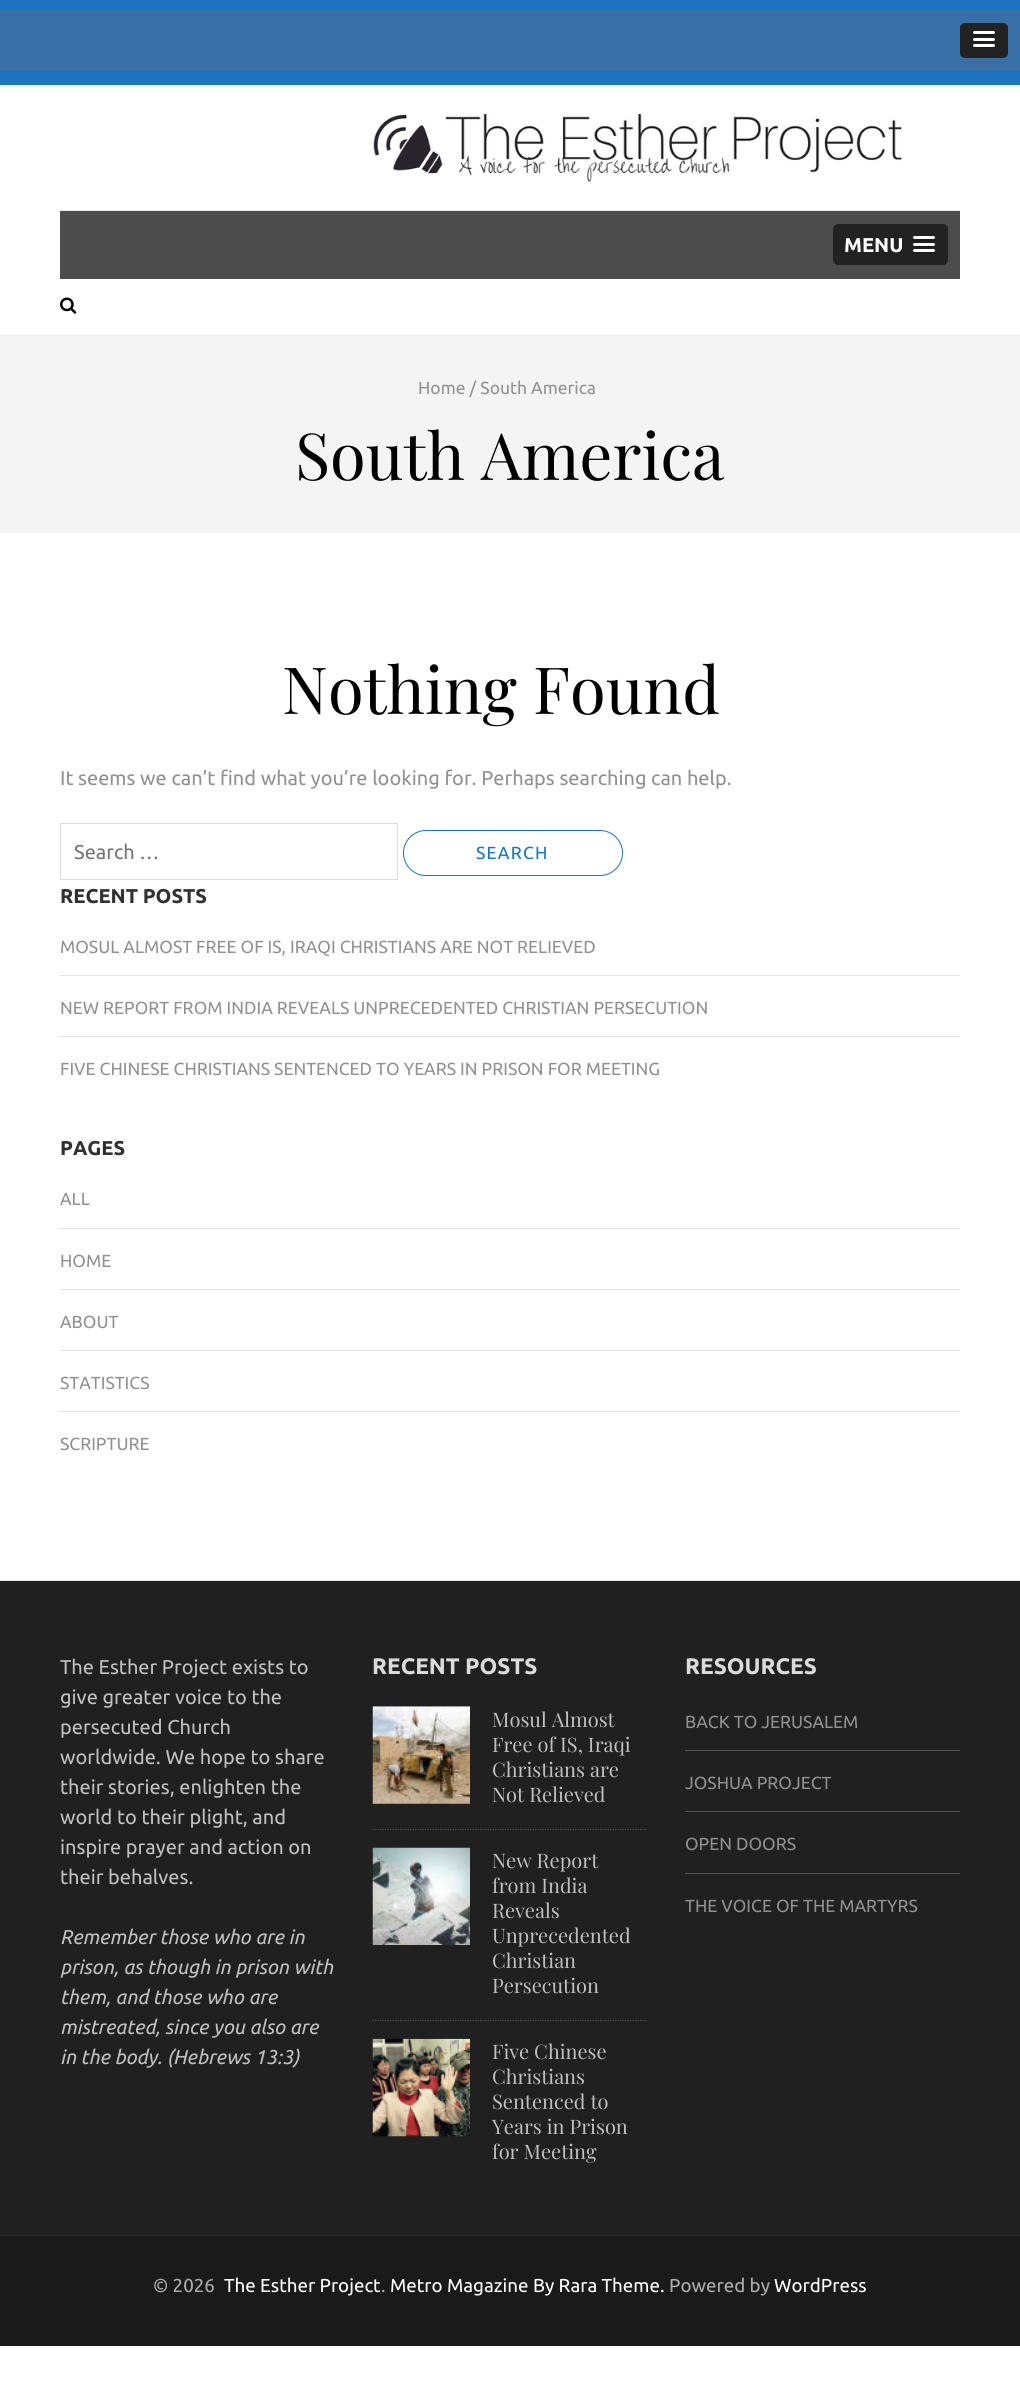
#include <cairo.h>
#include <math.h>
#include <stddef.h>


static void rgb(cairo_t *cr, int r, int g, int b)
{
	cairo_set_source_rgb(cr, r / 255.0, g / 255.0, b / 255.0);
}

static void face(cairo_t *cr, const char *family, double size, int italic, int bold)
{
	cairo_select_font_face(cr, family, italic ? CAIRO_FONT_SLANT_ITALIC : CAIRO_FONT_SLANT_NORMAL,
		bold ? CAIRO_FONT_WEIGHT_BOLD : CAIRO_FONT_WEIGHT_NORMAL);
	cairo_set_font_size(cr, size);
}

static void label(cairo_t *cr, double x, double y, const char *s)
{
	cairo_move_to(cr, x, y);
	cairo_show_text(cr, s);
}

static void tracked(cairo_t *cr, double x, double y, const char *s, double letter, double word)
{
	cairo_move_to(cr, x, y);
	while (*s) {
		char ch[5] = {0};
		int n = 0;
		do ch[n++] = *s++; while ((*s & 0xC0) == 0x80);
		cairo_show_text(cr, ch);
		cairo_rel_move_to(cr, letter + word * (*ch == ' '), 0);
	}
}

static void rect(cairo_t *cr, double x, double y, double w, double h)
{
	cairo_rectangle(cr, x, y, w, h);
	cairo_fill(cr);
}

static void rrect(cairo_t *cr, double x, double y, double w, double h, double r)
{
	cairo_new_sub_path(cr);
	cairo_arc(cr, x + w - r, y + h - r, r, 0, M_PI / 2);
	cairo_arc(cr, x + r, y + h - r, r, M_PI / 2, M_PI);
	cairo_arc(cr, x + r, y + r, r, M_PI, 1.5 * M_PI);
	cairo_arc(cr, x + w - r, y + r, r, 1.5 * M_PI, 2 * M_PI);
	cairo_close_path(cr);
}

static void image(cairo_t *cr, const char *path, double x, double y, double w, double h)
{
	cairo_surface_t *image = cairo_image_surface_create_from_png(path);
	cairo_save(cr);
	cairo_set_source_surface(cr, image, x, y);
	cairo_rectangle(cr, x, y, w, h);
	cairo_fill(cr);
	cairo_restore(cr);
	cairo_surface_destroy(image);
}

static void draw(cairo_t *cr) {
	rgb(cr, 255, 255, 255);
	cairo_paint(cr);
	rgb(cr, 30, 115, 190);
	rect(cr, 0, 0, 1020, 85);
	rgb(cr, 56, 111, 167);
	rect(cr, 0, 10, 1020, 61);
	rgb(cr, 34, 34, 34);
	rrect(cr, 960, 23, 48, 35, 5);
	cairo_fill(cr);
	rgb(cr, 26, 26, 26);
	cairo_new_path(cr);
	cairo_move_to(cr, 973.5, 33.5);
	cairo_curve_to(cr, 971.5, 36.5, 977, 36, 977.5, 36);
	cairo_line_to(cr, 984, 36);
	cairo_curve_to(cr, 986, 36, 994, 36.5, 994.5, 35.5);
	cairo_curve_to(cr, 995, 34.5, 995, 34, 994.5, 33.5);
	cairo_curve_to(cr, 994, 34, 974.5, 34, 973.5, 33.5);
	cairo_close_path(cr);
	cairo_fill(cr);
	rgb(cr, 255, 255, 255);
	rrect(cr, 973, 31, 22, 3, 1.5);
	cairo_fill(cr);
	rgb(cr, 26, 26, 26);
	cairo_new_path(cr);
	cairo_move_to(cr, 973, 40);
	cairo_curve_to(cr, 972, 42.5, 977, 42, 977.5, 42);
	cairo_line_to(cr, 990.5, 42);
	cairo_curve_to(cr, 990.5, 42, 997, 42.5, 994.5, 39.5);
	cairo_line_to(cr, 994, 40);
	cairo_close_path(cr);
	cairo_fill(cr);
	rgb(cr, 255, 255, 255);
	rrect(cr, 973, 38, 22, 3, 1.5);
	cairo_fill(cr);
	rgb(cr, 26, 26, 26);
	cairo_new_path(cr);
	cairo_move_to(cr, 973, 46);
	cairo_curve_to(cr, 972.5, 48.5, 977, 48, 977.5, 48);
	cairo_line_to(cr, 990.5, 48);
	cairo_curve_to(cr, 991, 48, 996.5, 48.5, 995, 45.5);
	cairo_line_to(cr, 994, 46);
	cairo_close_path(cr);
	cairo_fill(cr);
	rgb(cr, 255, 255, 255);
	rrect(cr, 973, 44, 22, 3, 1.5);
	cairo_fill(cr);
	image(cr, "image0.png", 373, 113, 529, 69);
	rgb(cr, 235, 235, 235);
	rect(cr, 60, 210, 900, 1);
	rgb(cr, 76, 76, 76);
	rect(cr, 60, 211, 900, 68);
	rgb(cr, 34, 34, 34);
	rrect(cr, 833, 224, 115, 41, 5);
	cairo_fill(cr);
	face(cr, "Ubuntu", 20, 0, 1);
	rgb(cr, 255, 255, 255);
	label(cr, 844, 252, "MENU");
	rgb(cr, 26, 26, 26);
	cairo_new_path(cr);
	cairo_move_to(cr, 913.5, 238.5);
	cairo_curve_to(cr, 911.5, 241.5, 917, 241, 917.5, 241);
	cairo_line_to(cr, 924, 241);
	cairo_curve_to(cr, 926, 241, 934, 241.5, 934.5, 240.5);
	cairo_curve_to(cr, 935, 239.5, 935, 239, 934.5, 238.5);
	cairo_curve_to(cr, 934, 239, 914.5, 239, 913.5, 238.5);
	cairo_close_path(cr);
	cairo_fill(cr);
	rgb(cr, 255, 255, 255);
	rrect(cr, 913, 236, 22, 3, 1.5);
	cairo_fill(cr);
	rgb(cr, 26, 26, 26);
	cairo_new_path(cr);
	cairo_move_to(cr, 913, 245);
	cairo_curve_to(cr, 912, 247.5, 917, 247, 917.5, 247);
	cairo_line_to(cr, 930.5, 247);
	cairo_curve_to(cr, 930.5, 247, 937, 247.5, 934.5, 244.5);
	cairo_line_to(cr, 934, 245);
	cairo_close_path(cr);
	cairo_fill(cr);
	rgb(cr, 255, 255, 255);
	rrect(cr, 913, 243, 22, 3, 1.5);
	cairo_fill(cr);
	rgb(cr, 26, 26, 26);
	cairo_new_path(cr);
	cairo_move_to(cr, 913, 251);
	cairo_curve_to(cr, 912.5, 253.5, 917, 253, 917.5, 253);
	cairo_line_to(cr, 930.5, 253);
	cairo_curve_to(cr, 931, 253, 936.5, 253.5, 935, 250.5);
	cairo_line_to(cr, 934, 251);
	cairo_close_path(cr);
	cairo_fill(cr);
	rgb(cr, 255, 255, 255);
	rrect(cr, 913, 249, 22, 3, 1.5);
	cairo_fill(cr);
	image(cr, "image1.png", 60, 297, 17, 17);
	rgb(cr, 244, 244, 244);
	rect(cr, 0, 336, 1020, 197);
	rgb(cr, 235, 235, 235);
	rect(cr, 0, 335, 1020, 1);
	face(cr, "Ubuntu", 17.5, 0, 0);
	rgb(cr, 145, 145, 145);
	label(cr, 418, 394, "Home / South America");
	face(cr, "Playfair Display", 65, 0, 0);
	rgb(cr, 0, 0, 0);
	label(cr, 295, 480, "South America");
	rgb(cr, 235, 235, 235);
	rect(cr, 0, 1580, 1020, 1);
	rgb(cr, 0, 0, 0);
	label(cr, 282, 714, "Nothing Found");
	face(cr, "Ubuntu", 20, 0, 0);
	rgb(cr, 145, 145, 145);
	label(cr, 60, 785, "It seems we can’t find what you’re looking for. Perhaps searching can help.");
	cairo_rectangle(cr, 60.5, 823.5, 337, 56);
	rgb(cr, 219, 219, 219);
	cairo_set_line_width(cr, 1);
	cairo_stroke(cr);
	rgb(cr, 117, 117, 117);
	label(cr, 74, 859, "Search …");
	rrect(cr, 403.5, 830.5, 219, 45, 22.5);
	rgb(cr, 30, 115, 190);
	cairo_stroke(cr);
	face(cr, "Ubuntu", 17.5, 0, 0);
	tracked(cr, 476, 859, "SEARCH", 1.25, 0);
	face(cr, "Ubuntu", 20, 0, 1);
	rgb(cr, 49, 49, 49);
	label(cr, 60, 903, "RECENT POSTS");
	rgb(cr, 227, 227, 227);
	rect(cr, 60, 975, 900, 1);
	face(cr, "Ubuntu", 17.5, 0, 0);
	rgb(cr, 145, 145, 145);
	label(cr, 60, 953, "MOSUL ALMOST FREE OF IS, IRAQI CHRISTIANS ARE NOT RELIEVED");
	rgb(cr, 227, 227, 227);
	rect(cr, 60, 1036, 900, 1);
	rgb(cr, 145, 145, 145);
	label(cr, 60, 1014, "NEW REPORT FROM INDIA REVEALS UNPRECEDENTED CHRISTIAN PERSECUTION");
	label(cr, 60, 1075, "FIVE CHINESE CHRISTIANS SENTENCED TO YEARS IN PRISON FOR MEETING");
	face(cr, "Ubuntu", 20, 0, 1);
	rgb(cr, 49, 49, 49);
	label(cr, 60, 1155, "PAGES");
	rgb(cr, 227, 227, 227);
	rect(cr, 60, 1228, 900, 1);
	face(cr, "Ubuntu", 17.5, 0, 0);
	rgb(cr, 145, 145, 145);
	label(cr, 60, 1205, "ALL");
	rgb(cr, 227, 227, 227);
	rect(cr, 60, 1289, 900, 1);
	rgb(cr, 145, 145, 145);
	label(cr, 60, 1267, "HOME");
	rgb(cr, 227, 227, 227);
	rect(cr, 60, 1350, 900, 1);
	rgb(cr, 145, 145, 145);
	label(cr, 60, 1328, "ABOUT");
	rgb(cr, 227, 227, 227);
	rect(cr, 60, 1411, 900, 1);
	rgb(cr, 145, 145, 145);
	label(cr, 60, 1389, "STATISTICS");
	label(cr, 60, 1450, "SCRIPTURE");
	rgb(cr, 32, 32, 32);
	rect(cr, 0, 1581, 1020, 654);
	face(cr, "Ubuntu", 20, 0, 0);
	rgb(cr, 192, 192, 192);
	label(cr, 60, 1674, "The Esther Project exists to");
	label(cr, 60, 1704, "give greater voice to the");
	label(cr, 60, 1734, "persecuted Church");
	label(cr, 60, 1764, "worldwide. We hope to share");
	label(cr, 60, 1794, "their stories, enlighten the");
	label(cr, 60, 1824, "world to their plight, and");
	label(cr, 60, 1854, "inspire prayer and action on");
	label(cr, 60, 1884, "their behalves.");
	face(cr, "Ubuntu", 20, 1, 0);
	label(cr, 60, 1944, "Remember those who are in");
	label(cr, 60, 1974, "prison, as though in prison with");
	label(cr, 60, 2004, "them, and those who are");
	label(cr, 60, 2034, "mistreated, since you also are");
	label(cr, 60, 2064, "in the body. (Hebrews 13:3)");
	face(cr, "Ubuntu", 22.5, 0, 1);
	rgb(cr, 219, 219, 219);
	label(cr, 372, 1674, "RECENT POSTS");
	cairo_new_path(cr);
	cairo_move_to(cr, 372.5, 1829.5);
	cairo_line_to(cr, 647.5, 1829.5);
	rgb(cr, 78, 78, 78);
	cairo_set_line_width(cr, 1.2);
	cairo_set_dash(cr, (double[]){1.25, 1.25}, 2, 0);
	cairo_stroke(cr);
	image(cr, "image2.png", 372, 1706, 98, 98);
	face(cr, "Playfair Display", 20, 0, 0);
	rgb(cr, 192, 192, 192);
	label(cr, 492, 1727, "Mosul Almost");
	label(cr, 492, 1752, "Free of IS, Iraqi");
	label(cr, 492, 1777, "Christians are");
	label(cr, 492, 1802, "Not Relieved");
	cairo_new_path(cr);
	cairo_move_to(cr, 372.5, 2020.5);
	cairo_line_to(cr, 647.5, 2020.5);
	rgb(cr, 78, 78, 78);
	cairo_stroke(cr);
	image(cr, "image3.png", 372, 1847, 98, 98);
	rgb(cr, 192, 192, 192);
	label(cr, 492, 1868, "New Report");
	label(cr, 492, 1893, "from India");
	label(cr, 492, 1918, "Reveals");
	label(cr, 492, 1943, "Unprecedented");
	label(cr, 492, 1968, "Christian");
	label(cr, 492, 1993, "Persecution");
	image(cr, "image4.png", 372, 2038, 98, 99);
	label(cr, 492, 2059, "Five Chinese");
	label(cr, 492, 2084, "Christians");
	label(cr, 492, 2109, "Sentenced to");
	label(cr, 492, 2134, "Years in Prison");
	label(cr, 492, 2159, "for Meeting");
	face(cr, "Ubuntu", 22.5, 0, 1);
	rgb(cr, 219, 219, 219);
	label(cr, 685, 1674, "RESOURCES");
	rgb(cr, 81, 81, 81);
	rect(cr, 685, 1750, 275, 1);
	face(cr, "Ubuntu", 17.5, 0, 0);
	rgb(cr, 145, 145, 145);
	label(cr, 685, 1728, "BACK TO JERUSALEM");
	rgb(cr, 81, 81, 81);
	rect(cr, 685, 1811, 275, 1);
	rgb(cr, 145, 145, 145);
	label(cr, 685, 1789, "JOSHUA PROJECT");
	rgb(cr, 81, 81, 81);
	rect(cr, 685, 1873, 275, 1);
	rgb(cr, 145, 145, 145);
	label(cr, 685, 1850, "OPEN DOORS");
	label(cr, 685, 1912, "THE VOICE OF THE MARTYRS");
	rgb(cr, 26, 26, 26);
	rect(cr, 0, 2236, 1020, 110);
	rgb(cr, 37, 37, 37);
	rect(cr, 0, 2235, 1020, 1);
	face(cr, "Ubuntu", 18.75, 0, 0);
	rgb(cr, 173, 173, 173);
	label(cr, 153, 2292, "© 2026");
	rgb(cr, 255, 255, 255);
	label(cr, 224, 2292, "The Esther Project");
	rgb(cr, 173, 173, 173);
	label(cr, 381, 2292, ".");
	rgb(cr, 255, 255, 255);
	label(cr, 390, 2292, "Metro Magazine By Rara Theme.");
	rgb(cr, 173, 173, 173);
	label(cr, 669, 2292, "Powered by");
	rgb(cr, 255, 255, 255);
	label(cr, 774, 2292, "WordPress");
}

int main(void) {
	cairo_surface_t *surface = cairo_image_surface_create(CAIRO_FORMAT_RGB24, 1020, 2385);
	cairo_t *cr = cairo_create(surface);
	cairo_font_options_t *options = cairo_font_options_create();
	cairo_font_options_set_hint_metrics(options, CAIRO_HINT_METRICS_OFF);
	cairo_font_options_set_hint_style(options, CAIRO_HINT_STYLE_NONE);
	cairo_set_font_options(cr, options);
	cairo_set_miter_limit(cr, 4);
	draw(cr);
	cairo_surface_write_to_png(surface, "render.png");
	cairo_font_options_destroy(options);
	cairo_destroy(cr);
	cairo_surface_destroy(surface);
	return 0;
}
